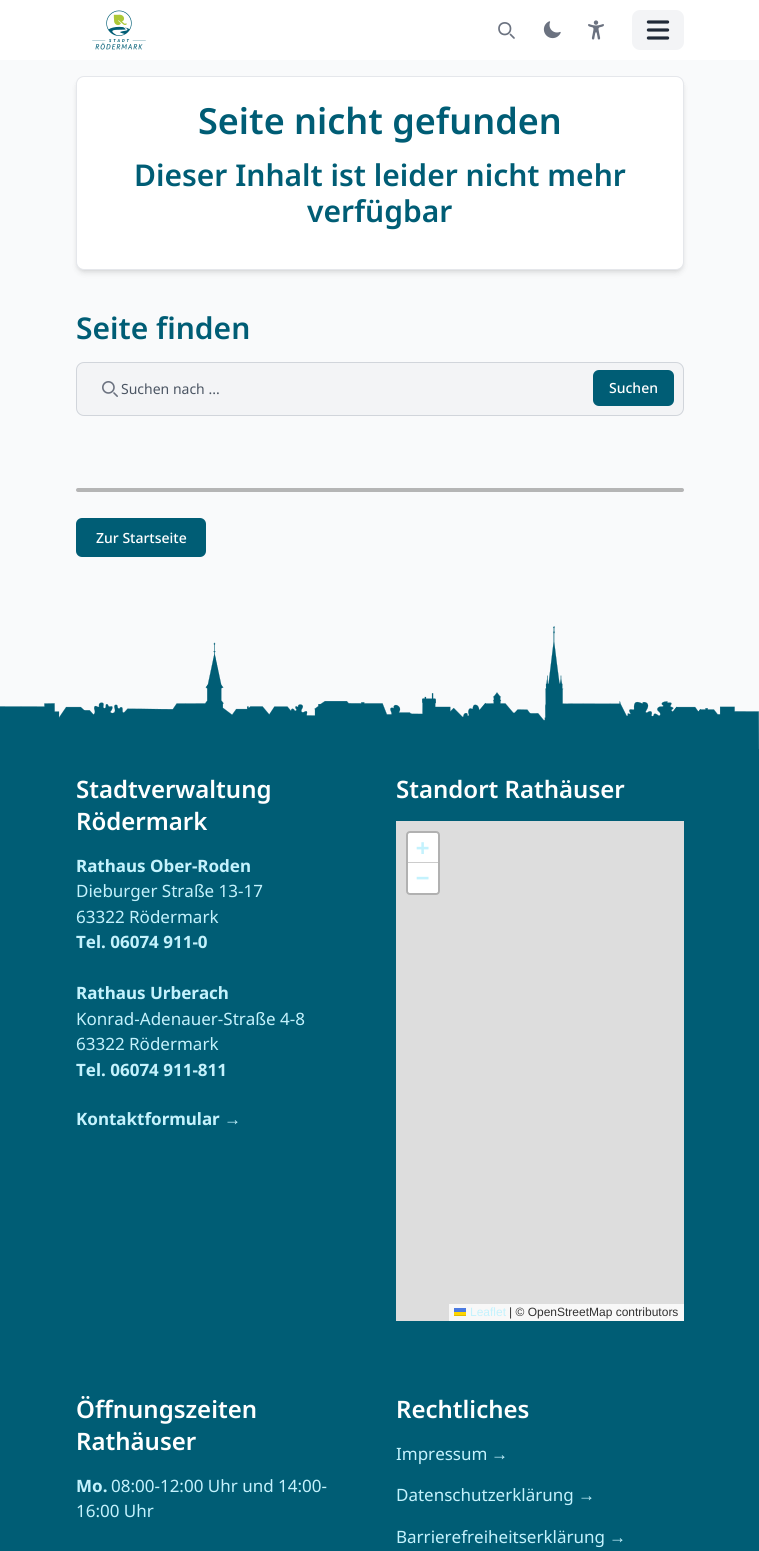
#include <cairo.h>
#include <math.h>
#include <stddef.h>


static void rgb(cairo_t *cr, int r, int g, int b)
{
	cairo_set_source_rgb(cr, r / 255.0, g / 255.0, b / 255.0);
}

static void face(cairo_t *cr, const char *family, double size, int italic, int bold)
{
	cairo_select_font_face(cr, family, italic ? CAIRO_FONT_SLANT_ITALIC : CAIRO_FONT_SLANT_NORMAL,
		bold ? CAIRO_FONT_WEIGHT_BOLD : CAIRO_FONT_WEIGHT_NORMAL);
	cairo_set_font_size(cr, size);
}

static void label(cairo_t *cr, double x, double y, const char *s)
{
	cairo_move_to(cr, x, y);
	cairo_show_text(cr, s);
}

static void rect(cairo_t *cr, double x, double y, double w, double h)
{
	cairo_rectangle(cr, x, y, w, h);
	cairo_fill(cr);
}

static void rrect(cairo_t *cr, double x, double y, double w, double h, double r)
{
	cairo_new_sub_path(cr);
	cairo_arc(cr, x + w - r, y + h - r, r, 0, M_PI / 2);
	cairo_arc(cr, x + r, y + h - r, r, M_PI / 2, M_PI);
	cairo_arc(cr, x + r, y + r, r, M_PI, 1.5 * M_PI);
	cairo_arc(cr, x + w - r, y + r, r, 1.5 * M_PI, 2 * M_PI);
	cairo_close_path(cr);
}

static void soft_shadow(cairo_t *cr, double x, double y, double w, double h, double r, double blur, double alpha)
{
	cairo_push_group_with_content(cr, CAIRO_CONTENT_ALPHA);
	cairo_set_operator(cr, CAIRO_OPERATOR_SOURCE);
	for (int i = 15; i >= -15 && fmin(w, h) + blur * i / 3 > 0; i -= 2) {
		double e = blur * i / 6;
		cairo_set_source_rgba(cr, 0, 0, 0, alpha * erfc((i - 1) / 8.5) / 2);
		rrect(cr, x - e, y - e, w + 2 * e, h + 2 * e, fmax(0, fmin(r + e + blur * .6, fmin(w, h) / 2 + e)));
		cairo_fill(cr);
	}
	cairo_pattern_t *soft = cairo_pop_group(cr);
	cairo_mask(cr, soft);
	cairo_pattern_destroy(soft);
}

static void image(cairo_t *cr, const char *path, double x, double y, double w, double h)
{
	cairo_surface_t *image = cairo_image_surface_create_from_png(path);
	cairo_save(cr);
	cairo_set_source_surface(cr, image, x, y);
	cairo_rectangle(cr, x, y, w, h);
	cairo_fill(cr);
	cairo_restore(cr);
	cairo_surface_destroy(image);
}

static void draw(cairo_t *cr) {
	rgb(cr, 249, 250, 251);
	cairo_paint(cr);
	rgb(cr, 255, 255, 255);
	rect(cr, 0, 0, 759, 60);
	image(cr, "image0.png", 92, 10, 54, 40);
	cairo_new_path(cr);
	cairo_move_to(cr, 514, 38);
	cairo_line_to(cr, 510.5, 34.5);
	cairo_move_to(cr, 510.5, 28.5);
	cairo_curve_to(cr, 510.5, 36.5, 499, 36.5, 499, 28.5);
	cairo_curve_to(cr, 499, 21, 510.5, 21, 510.5, 28.5);
	cairo_close_path(cr);
	rgb(cr, 107, 114, 128);
	cairo_set_line_width(cr, 1.7);
	cairo_set_line_cap(cr, CAIRO_LINE_CAP_ROUND);
	cairo_set_line_join(cr, CAIRO_LINE_JOIN_ROUND);
	cairo_stroke(cr);
	image(cr, "image1.png", 543, 21, 18, 18);
	image(cr, "image2.png", 588, 20, 16, 20);
	rgb(cr, 243, 244, 246);
	rrect(cr, 632, 10, 52, 40, 8);
	cairo_fill(cr);
	image(cr, "image3.png", 646, 20, 24, 20);
	rgb(cr, 0, 0, 0);
	soft_shadow(cr, 78, 80, 604, 190, 6, 2, 0.1);
	soft_shadow(cr, 77, 81, 606, 192, 7, 3, 0.1);
	rgb(cr, 255, 255, 255);
	rrect(cr, 76.5, 76.5, 607, 193, 7.5);
	cairo_fill_preserve(cr);
	rgb(cr, 229, 231, 235);
	cairo_set_line_width(cr, 1);
	cairo_set_line_cap(cr, CAIRO_LINE_CAP_BUTT);
	cairo_set_line_join(cr, CAIRO_LINE_JOIN_MITER);
	cairo_stroke(cr);
	face(cr, "Noto Sans SemiBold", 36, 0, 0);
	rgb(cr, 0, 93, 117);
	label(cr, 198, 134, "Seite nicht gefunden");
	face(cr, "Noto Sans SemiBold", 30, 0, 0);
	label(cr, 134, 186, "Dieser Inhalt ist leider nicht mehr");
	label(cr, 307, 222, "verfügbar");
	label(cr, 76, 339, "Seite finden");
	rgb(cr, 243, 244, 246);
	rrect(cr, 76.5, 362.5, 607, 53, 7.5);
	cairo_fill_preserve(cr);
	rgb(cr, 209, 213, 219);
	cairo_stroke(cr);
	image(cr, "image4.png", 102, 381, 16, 16);
	face(cr, "Noto Sans", 14, 0, 0);
	rgb(cr, 75, 85, 99);
	label(cr, 121, 394, "Suchen nach ...");
	rgb(cr, 0, 93, 117);
	rrect(cr, 593, 370, 81, 36, 6);
	cairo_fill(cr);
	face(cr, "Noto Sans Medium", 14, 0, 0);
	rgb(cr, 255, 255, 255);
	label(cr, 609, 393, "Suchen");
	rgb(cr, 181, 181, 181);
	rrect(cr, 76, 488, 608, 4, 2);
	cairo_fill(cr);
	rgb(cr, 0, 93, 117);
	rrect(cr, 76, 518, 130, 39, 6);
	cairo_fill(cr);
	rgb(cr, 255, 255, 255);
	label(cr, 96, 543, "Zur Startseite");
	image(cr, "image5.png", 0, 626, 759, 123);
	rgb(cr, 0, 93, 117);
	rect(cr, 0, 749, 759, 802);
	face(cr, "Noto Sans SemiBold", 24, 0, 0);
	rgb(cr, 255, 255, 255);
	label(cr, 76, 798, "Stadtverwaltung");
	label(cr, 76, 830, "Rödermark");
	face(cr, "Noto Sans", 17, 0, 1);
	rgb(cr, 196, 242, 253);
	label(cr, 76, 872, "Rathaus Ober-Roden");
	face(cr, "Noto Sans", 17, 0, 0);
	label(cr, 76, 897, "Dieburger Straße 13-17");
	label(cr, 76, 923, "63322 Rödermark");
	face(cr, "Noto Sans", 17, 0, 1);
	label(cr, 76, 948, "Tel. 06074 911-0");
	label(cr, 76, 999, "Rathaus Urberach");
	face(cr, "Noto Sans", 17, 0, 0);
	label(cr, 76, 1025, "Konrad-Adenauer-Straße 4-8");
	label(cr, 76, 1050, "63322 Rödermark");
	face(cr, "Noto Sans", 17, 0, 1);
	label(cr, 76, 1076, "Tel. 06074 911-811");
	label(cr, 76, 1125, "Kontaktformular");
	face(cr, "Liberation Sans", 17, 0, 1);
	label(cr, 224, 1125, "→");
	face(cr, "Noto Sans SemiBold", 24, 0, 0);
	rgb(cr, 255, 255, 255);
	label(cr, 396, 798, "Standort Rathäuser");
	rgb(cr, 221, 221, 221);
	rect(cr, 396, 821, 288, 500);
	rrect(cr, 407, 832, 32, 62, 3);
	rgb(cr, 177, 177, 177);
	cairo_set_line_width(cr, 2);
	cairo_stroke(cr);
	rgb(cr, 255, 255, 255);
	cairo_new_path(cr);
	cairo_move_to(cr, 410, 833);
	cairo_line_to(cr, 436, 833);
	cairo_curve_to(cr, 437, 833, 438, 834, 438, 835);
	cairo_line_to(cr, 438, 862);
	cairo_line_to(cr, 408, 862);
	cairo_line_to(cr, 408, 835);
	cairo_curve_to(cr, 408, 834, 409, 833, 410, 833);
	cairo_close_path(cr);
	cairo_fill(cr);
	rgb(cr, 204, 204, 204);
	rect(cr, 408, 862, 30, 1);
	face(cr, "DejaVu Sans Mono", 22, 0, 1);
	rgb(cr, 196, 242, 253);
	label(cr, 416, 855, "+");
	rgb(cr, 255, 255, 255);
	cairo_new_path(cr);
	cairo_move_to(cr, 408, 863);
	cairo_line_to(cr, 438, 863);
	cairo_line_to(cr, 438, 891);
	cairo_curve_to(cr, 438, 892, 437, 893, 436, 893);
	cairo_line_to(cr, 410, 893);
	cairo_curve_to(cr, 409, 893, 408, 892, 408, 891);
	cairo_close_path(cr);
	cairo_fill(cr);
	rgb(cr, 196, 242, 253);
	label(cr, 416, 885, "−");
	rgb(cr, 248, 248, 248);
	rect(cr, 449, 1304, 235, 17);
	face(cr, "Liberation Sans", 12, 0, 0);
	rgb(cr, 196, 242, 253);
	label(cr, 470, 1316, "Leaflet");
	rgb(cr, 76, 123, 225);
	rect(cr, 454, 1308, 12, 4);
	rgb(cr, 255, 213, 0);
	rect(cr, 454, 1312, 12, 3);
	rgb(cr, 224, 188, 0);
	rect(cr, 454, 1315, 12, 1);
	rgb(cr, 51, 51, 51);
	label(cr, 509, 1316, "| © OpenStreetMap contributors");
	face(cr, "Noto Sans SemiBold", 24, 0, 0);
	rgb(cr, 255, 255, 255);
	label(cr, 76, 1418, "Öffnungszeiten");
	label(cr, 76, 1450, "Rathäuser");
	face(cr, "Noto Sans", 17, 0, 1);
	rgb(cr, 196, 242, 253);
	label(cr, 76, 1492, "Mo.");
	face(cr, "Noto Sans", 17, 0, 0);
	label(cr, 111, 1492, "08:00-12:00 Uhr und 14:00-");
	label(cr, 76, 1517, "16:00 Uhr");
	face(cr, "Noto Sans SemiBold", 24, 0, 0);
	rgb(cr, 255, 255, 255);
	label(cr, 396, 1418, "Rechtliches");
	face(cr, "Noto Sans", 17, 0, 0);
	rgb(cr, 196, 242, 253);
	label(cr, 396, 1460, "Impressum");
	face(cr, "Liberation Sans", 17, 0, 0);
	label(cr, 491, 1460, "→");
	face(cr, "Noto Sans", 17, 0, 0);
	label(cr, 396, 1501, "Datenschutzerklärung");
	face(cr, "Liberation Sans", 17, 0, 0);
	label(cr, 578, 1501, "→");
	face(cr, "Noto Sans", 17, 0, 0);
	label(cr, 396, 1543, "Barrierefreiheitserklärung");
	face(cr, "Liberation Sans", 17, 0, 0);
	label(cr, 609, 1543, "→");
}

int main(void) {
	cairo_surface_t *surface = cairo_image_surface_create(CAIRO_FORMAT_RGB24, 759, 1551);
	cairo_t *cr = cairo_create(surface);
	cairo_font_options_t *options = cairo_font_options_create();
	cairo_font_options_set_hint_metrics(options, CAIRO_HINT_METRICS_OFF);
	cairo_font_options_set_hint_style(options, CAIRO_HINT_STYLE_NONE);
	cairo_set_font_options(cr, options);
	cairo_set_miter_limit(cr, 4);
	draw(cr);
	cairo_surface_write_to_png(surface, "render.png");
	cairo_font_options_destroy(options);
	cairo_destroy(cr);
	cairo_surface_destroy(surface);
	return 0;
}
